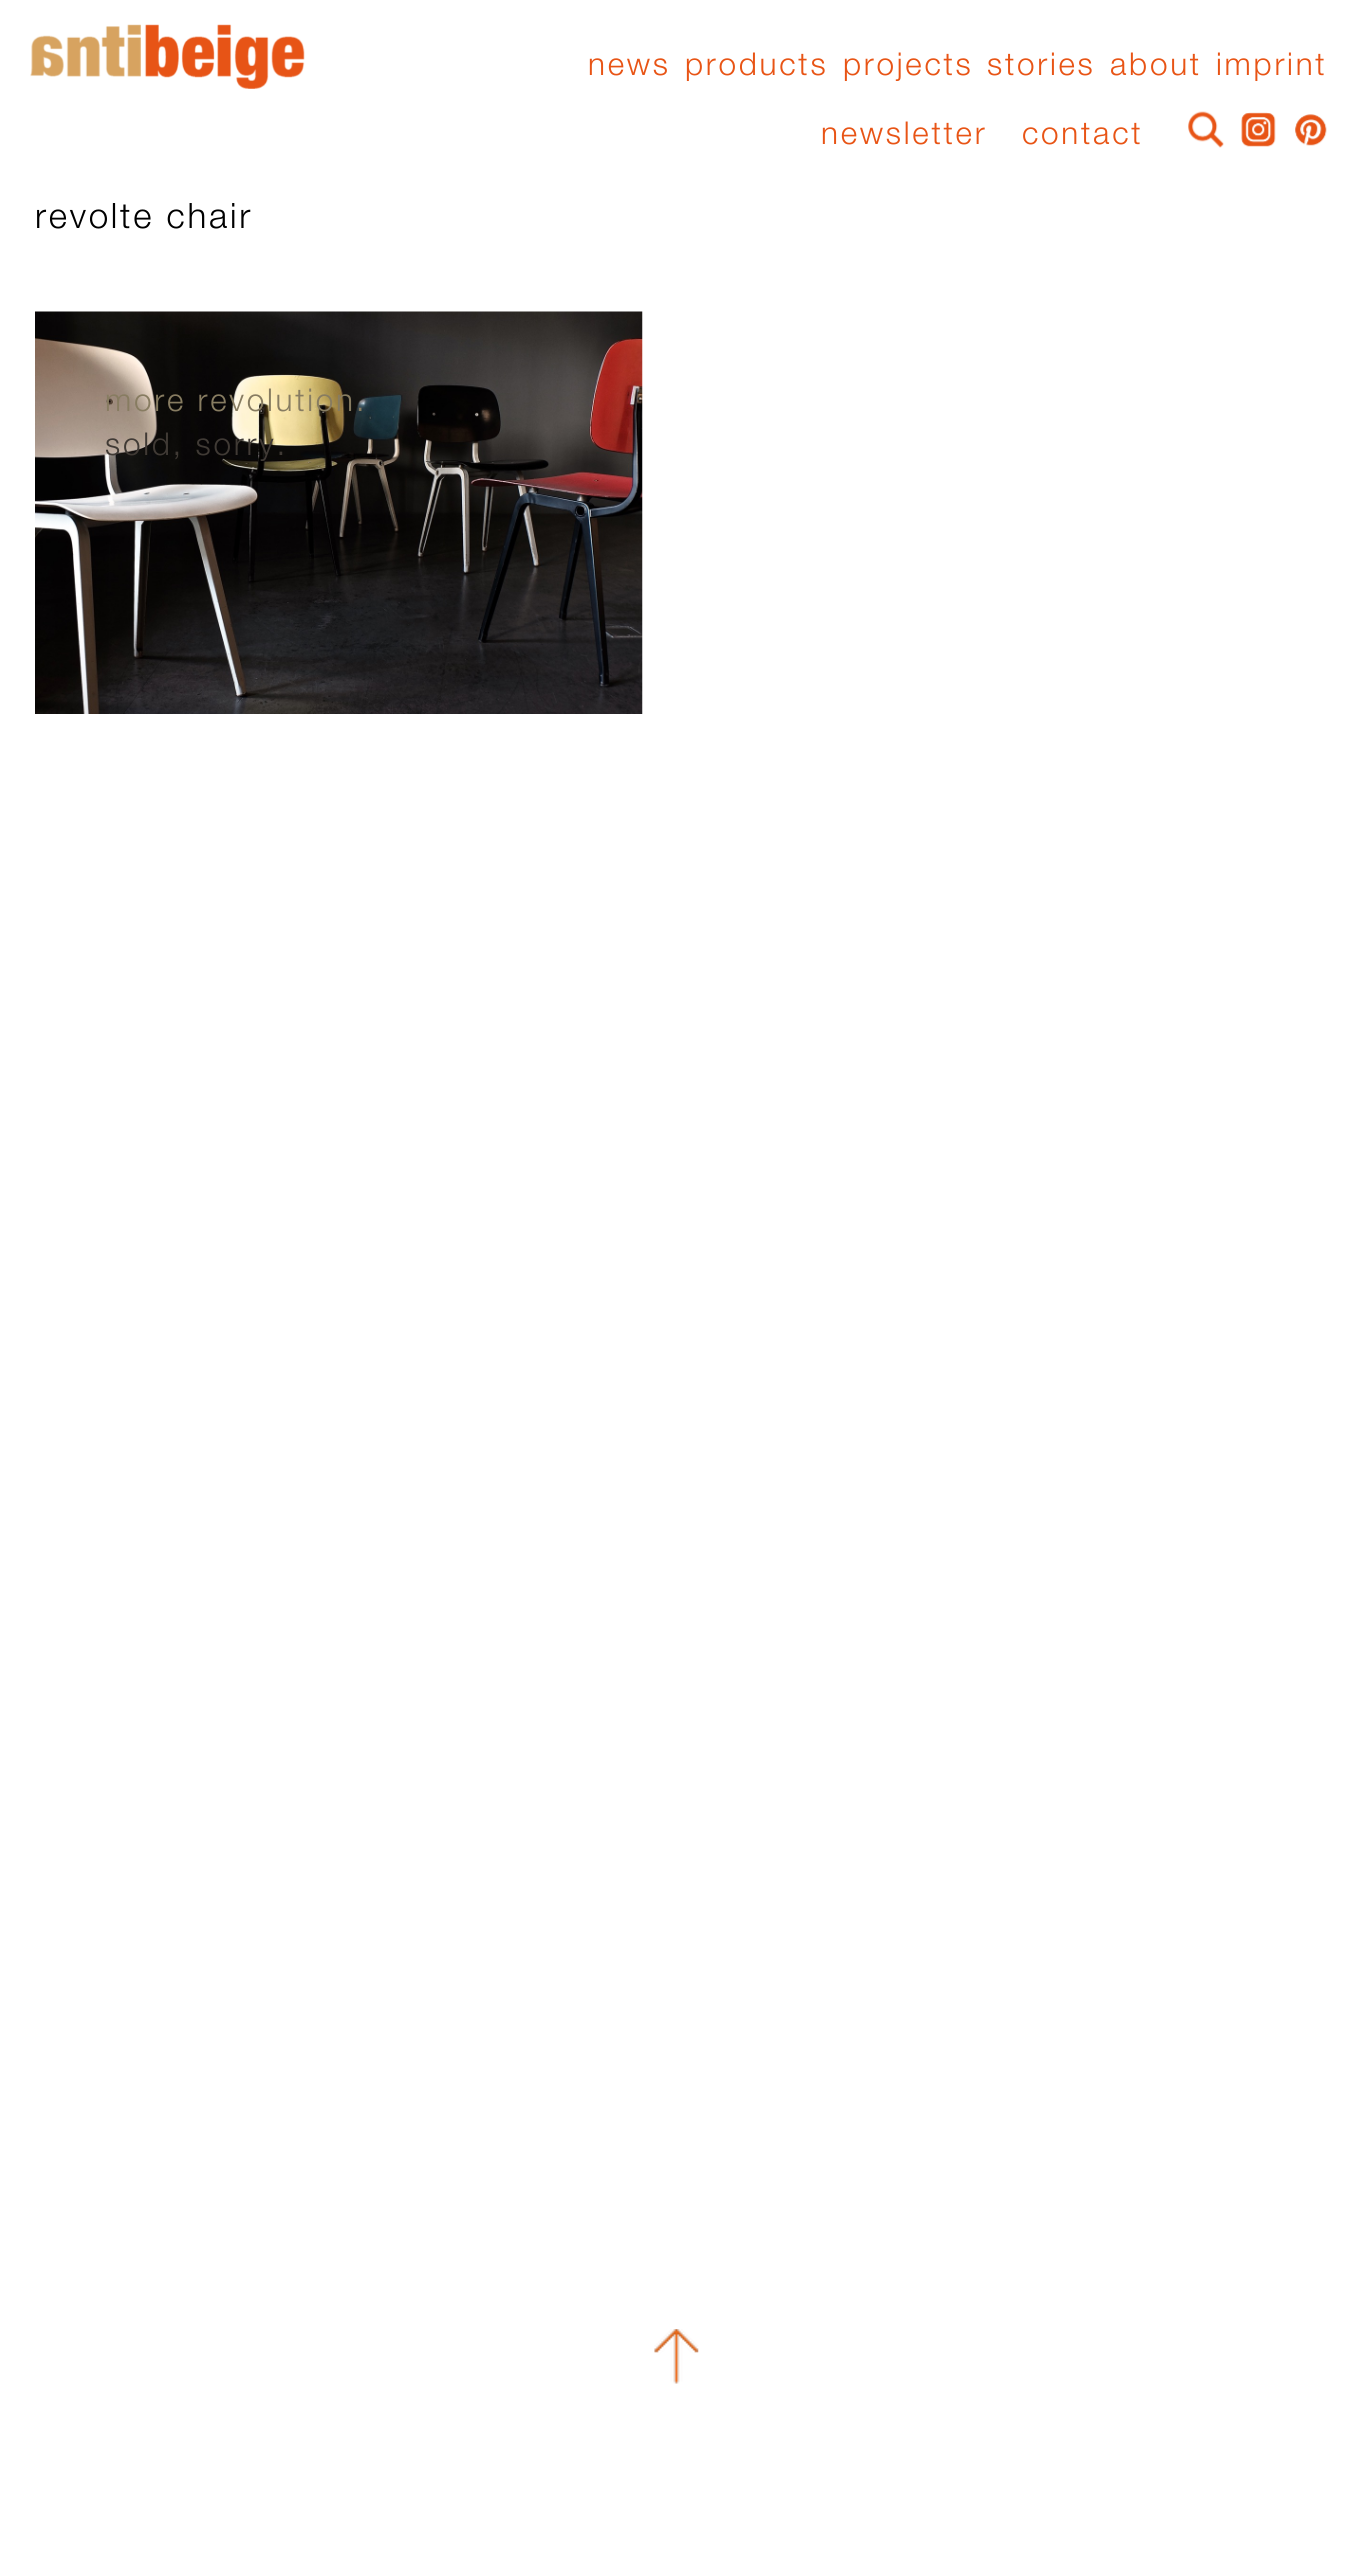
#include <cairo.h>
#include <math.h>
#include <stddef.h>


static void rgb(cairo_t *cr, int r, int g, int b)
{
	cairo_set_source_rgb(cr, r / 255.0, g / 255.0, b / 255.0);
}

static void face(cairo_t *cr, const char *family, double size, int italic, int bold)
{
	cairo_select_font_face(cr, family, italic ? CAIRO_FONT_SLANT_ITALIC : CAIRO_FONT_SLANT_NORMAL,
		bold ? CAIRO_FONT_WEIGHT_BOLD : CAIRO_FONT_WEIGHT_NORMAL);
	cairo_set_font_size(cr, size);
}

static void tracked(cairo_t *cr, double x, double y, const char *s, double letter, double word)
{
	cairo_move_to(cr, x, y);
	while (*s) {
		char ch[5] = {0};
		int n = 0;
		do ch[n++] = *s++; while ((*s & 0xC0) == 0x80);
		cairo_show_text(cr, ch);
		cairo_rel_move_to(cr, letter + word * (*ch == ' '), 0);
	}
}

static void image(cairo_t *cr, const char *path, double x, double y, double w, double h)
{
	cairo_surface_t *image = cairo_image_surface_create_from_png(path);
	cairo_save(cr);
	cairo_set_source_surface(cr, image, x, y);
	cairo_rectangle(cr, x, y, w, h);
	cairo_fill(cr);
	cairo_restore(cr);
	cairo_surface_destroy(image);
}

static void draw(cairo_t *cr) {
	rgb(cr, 255, 255, 255);
	cairo_paint(cr);
	image(cr, "image0.png", 30, 24, 275, 65);
	face(cr, "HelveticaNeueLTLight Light", 31.5, 0, 0);
	rgb(cr, 232, 84, 21);
	tracked(cr, 588, 75, "news", 2.75, 0);
	tracked(cr, 685, 75, "products", 2.75, 0);
	tracked(cr, 843, 75, "projects", 2.75, 0);
	tracked(cr, 987, 75, "stories", 2.75, 0);
	tracked(cr, 1110, 75, "about", 2.75, 0);
	tracked(cr, 1216, 75, "imprint", 2.75, 0);
	tracked(cr, 821, 144, "newsletter", 2.75, 0);
	tracked(cr, 1022, 144, "contact", 2.75, 0);
	image(cr, "image1.png", 1188, 111, 36, 37);
	image(cr, "image2.png", 1241, 112, 35, 35);
	image(cr, "image3.png", 1295, 114, 32, 32);
	face(cr, "HelveticaNeueLTLight Light", 35, 0, 0);
	rgb(cr, 0, 0, 0);
	tracked(cr, 35, 228, "revolte chair", 2.75, 0);
	image(cr, "image4.png", 35, 311, 608, 403);
	face(cr, "HelveticaNeueLTLight Light", 31.5, 0, 0);
	rgb(cr, 135, 124, 97);
	tracked(cr, 105, 411, "more revolution.", 2.75, 0);
	rgb(cr, 64, 58, 53);
	tracked(cr, 105, 455, "sold, sorry.", 2.75, 0);
	image(cr, "image5.png", 654, 2329, 45, 55);
}

int main(void) {
	cairo_surface_t *surface = cairo_image_surface_create(CAIRO_FORMAT_RGB24, 1354, 2565);
	cairo_t *cr = cairo_create(surface);
	cairo_font_options_t *options = cairo_font_options_create();
	cairo_font_options_set_hint_metrics(options, CAIRO_HINT_METRICS_OFF);
	cairo_font_options_set_hint_style(options, CAIRO_HINT_STYLE_NONE);
	cairo_set_font_options(cr, options);
	cairo_set_miter_limit(cr, 4);
	draw(cr);
	cairo_surface_write_to_png(surface, "render.png");
	cairo_font_options_destroy(options);
	cairo_destroy(cr);
	cairo_surface_destroy(surface);
	return 0;
}
